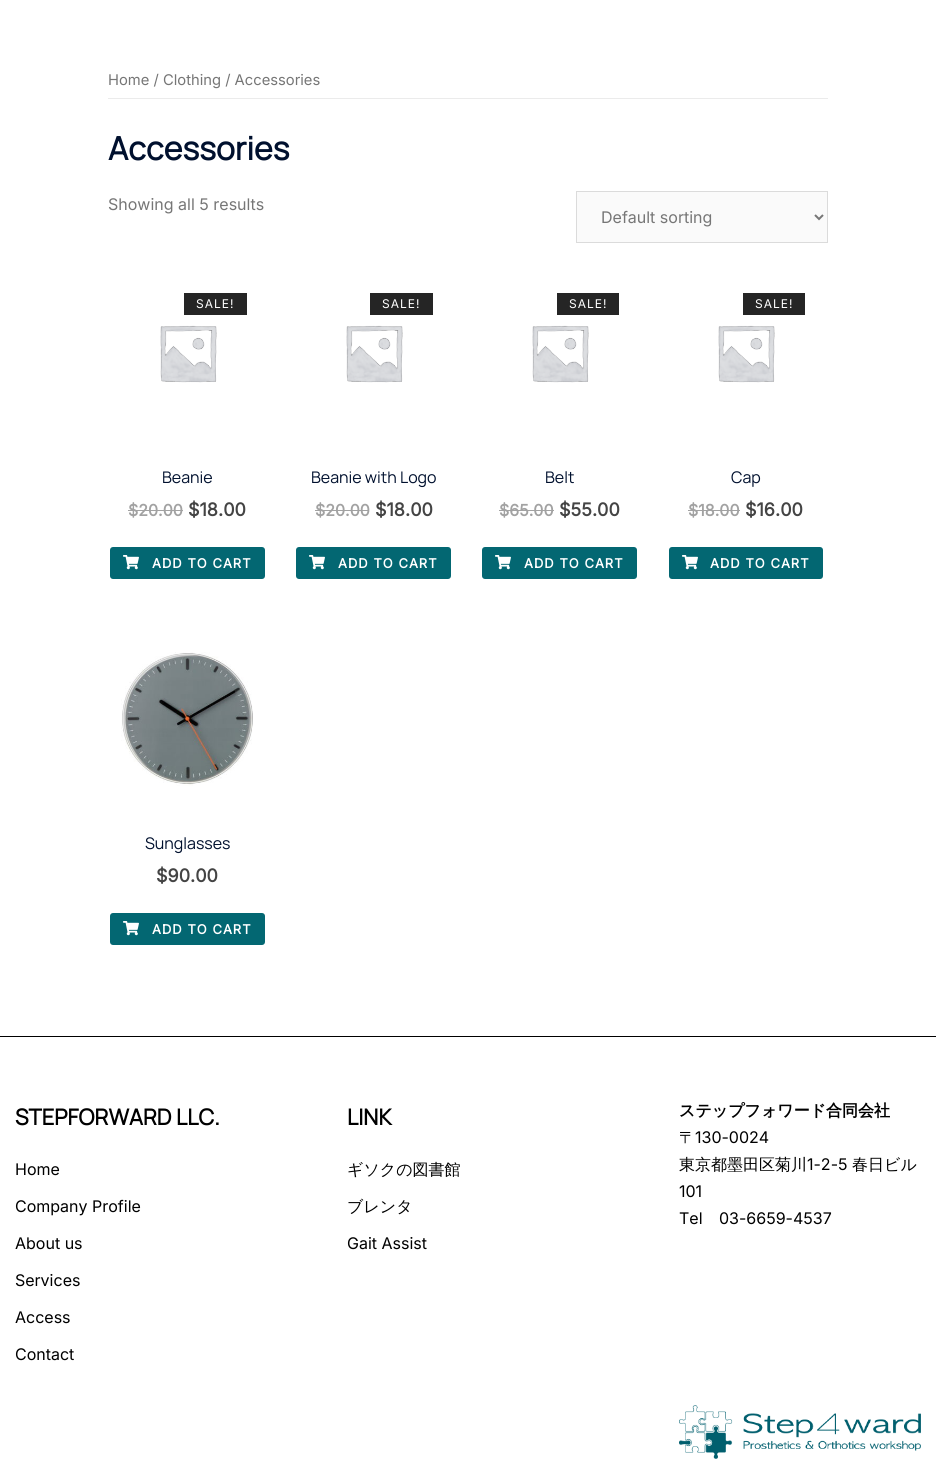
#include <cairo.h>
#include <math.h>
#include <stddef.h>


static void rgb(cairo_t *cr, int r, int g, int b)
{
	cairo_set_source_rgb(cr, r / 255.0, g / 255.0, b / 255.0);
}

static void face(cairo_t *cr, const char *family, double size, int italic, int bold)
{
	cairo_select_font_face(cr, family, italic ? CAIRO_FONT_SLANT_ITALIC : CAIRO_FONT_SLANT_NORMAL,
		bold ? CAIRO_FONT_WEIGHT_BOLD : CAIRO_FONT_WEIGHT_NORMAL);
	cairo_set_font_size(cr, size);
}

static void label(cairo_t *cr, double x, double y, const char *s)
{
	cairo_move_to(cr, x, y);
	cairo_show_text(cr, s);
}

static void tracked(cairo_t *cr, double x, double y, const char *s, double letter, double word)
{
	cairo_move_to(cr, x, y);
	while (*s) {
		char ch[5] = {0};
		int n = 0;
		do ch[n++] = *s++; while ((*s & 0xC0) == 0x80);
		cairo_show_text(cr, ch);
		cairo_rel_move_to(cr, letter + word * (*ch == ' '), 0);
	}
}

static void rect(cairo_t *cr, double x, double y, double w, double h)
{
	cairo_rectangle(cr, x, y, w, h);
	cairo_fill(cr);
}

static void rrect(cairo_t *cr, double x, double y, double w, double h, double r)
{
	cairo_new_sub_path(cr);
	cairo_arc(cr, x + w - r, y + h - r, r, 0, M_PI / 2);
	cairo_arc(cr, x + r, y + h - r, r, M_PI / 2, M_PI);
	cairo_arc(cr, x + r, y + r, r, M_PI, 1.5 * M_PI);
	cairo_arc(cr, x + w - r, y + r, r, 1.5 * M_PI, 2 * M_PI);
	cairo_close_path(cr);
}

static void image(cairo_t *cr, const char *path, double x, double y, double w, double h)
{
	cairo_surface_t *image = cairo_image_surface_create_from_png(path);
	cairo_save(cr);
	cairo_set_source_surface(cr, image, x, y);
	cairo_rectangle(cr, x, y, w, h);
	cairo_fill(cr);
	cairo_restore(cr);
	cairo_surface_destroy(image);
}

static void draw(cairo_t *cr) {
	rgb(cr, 255, 255, 255);
	cairo_paint(cr);
	rgb(cr, 235, 235, 235);
	rect(cr, 108, 98, 720, 1);
	face(cr, "Inter", 14.75, 0, 0);
	rgb(cr, 118, 118, 118);
	label(cr, 108, 85, "Home / Clothing / Accessories");
	face(cr, "Manrope", 32, 0, 1);
	rgb(cr, 0, 16, 46);
	label(cr, 108, 160, "Accessories");
	face(cr, "Inter", 16, 0, 0);
	rgb(cr, 118, 118, 118);
	label(cr, 108, 210, "Showing all 5 results");
	rgb(cr, 250, 250, 250);
	cairo_rectangle(cr, 576.5, 191.5, 251, 51);
	cairo_fill_preserve(cr);
	rgb(cr, 219, 219, 219);
	cairo_set_line_width(cr, 1);
	cairo_stroke(cr);
	cairo_new_path(cr);
	cairo_move_to(cr, 815, 215);
	cairo_line_to(cr, 819, 219);
	cairo_line_to(cr, 823, 215);
	rgb(cr, 118, 118, 118);
	cairo_set_line_width(cr, 2);
	cairo_stroke(cr);
	label(cr, 601, 223, "Default sorting");
	rgb(cr, 37, 37, 37);
	rect(cr, 184, 293, 63, 22);
	face(cr, "Inter", 12, 0, 0);
	rgb(cr, 255, 255, 255);
	tracked(cr, 196, 308, "SALE!", 1, 0);
	image(cr, "image0.png", 160, 325, 57, 58);
	face(cr, "Manrope ExtraLight", 16, 0, 0);
	rgb(cr, 0, 16, 46);
	label(cr, 162, 483, "Beanie");
	face(cr, "Inter", 16, 0, 1);
	rgb(cr, 162, 162, 162);
	label(cr, 128, 516, "$20.00");
	rect(cr, 128, 510, 55, 1);
	face(cr, "Inter", 18, 0, 1);
	rgb(cr, 68, 68, 68);
	label(cr, 188, 516, "$18.00");
	rgb(cr, 3, 103, 114);
	rrect(cr, 110, 547, 155, 32, 3);
	cairo_fill(cr);
	image(cr, "image1.png", 123, 555, 16, 15);
	face(cr, "Inter", 13, 0, 1);
	rgb(cr, 255, 255, 255);
	tracked(cr, 152, 568, "ADD TO CART", 1, 0);
	rgb(cr, 37, 37, 37);
	rect(cr, 370, 293, 63, 22);
	face(cr, "Inter", 12, 0, 0);
	rgb(cr, 255, 255, 255);
	tracked(cr, 382, 308, "SALE!", 1, 0);
	image(cr, "image0.png", 346, 325, 57, 58);
	face(cr, "Manrope ExtraLight", 16, 0, 0);
	rgb(cr, 0, 16, 46);
	label(cr, 311, 483, "Beanie with Logo");
	face(cr, "Inter", 16, 0, 1);
	rgb(cr, 162, 162, 162);
	label(cr, 315, 516, "$20.00");
	rect(cr, 315, 510, 54, 1);
	face(cr, "Inter", 18, 0, 1);
	rgb(cr, 68, 68, 68);
	label(cr, 375, 516, "$18.00");
	rgb(cr, 3, 103, 114);
	rrect(cr, 296, 547, 155, 32, 3);
	cairo_fill(cr);
	image(cr, "image1.png", 309, 555, 16, 15);
	face(cr, "Inter", 13, 0, 1);
	rgb(cr, 255, 255, 255);
	tracked(cr, 338, 568, "ADD TO CART", 1, 0);
	rgb(cr, 37, 37, 37);
	rect(cr, 557, 293, 62, 22);
	face(cr, "Inter", 12, 0, 0);
	rgb(cr, 255, 255, 255);
	tracked(cr, 569, 308, "SALE!", 1, 0);
	image(cr, "image0.png", 532, 325, 57, 58);
	face(cr, "Manrope ExtraLight", 16, 0, 0);
	rgb(cr, 0, 16, 46);
	label(cr, 545, 483, "Belt");
	face(cr, "Inter", 16, 0, 1);
	rgb(cr, 162, 162, 162);
	label(cr, 499, 516, "$65.00");
	rect(cr, 499, 510, 55, 1);
	face(cr, "Inter", 18, 0, 1);
	rgb(cr, 68, 68, 68);
	label(cr, 559, 516, "$55.00");
	rgb(cr, 3, 103, 114);
	rrect(cr, 482, 547, 155, 32, 3);
	cairo_fill(cr);
	image(cr, "image1.png", 495, 555, 16, 15);
	face(cr, "Inter", 13, 0, 1);
	rgb(cr, 255, 255, 255);
	tracked(cr, 524, 568, "ADD TO CART", 1, 0);
	rgb(cr, 37, 37, 37);
	rect(cr, 743, 293, 62, 22);
	face(cr, "Inter", 12, 0, 0);
	rgb(cr, 255, 255, 255);
	tracked(cr, 755, 308, "SALE!", 1, 0);
	image(cr, "image0.png", 718, 325, 57, 58);
	face(cr, "Manrope ExtraLight", 16, 0, 0);
	rgb(cr, 0, 16, 46);
	label(cr, 731, 483, "Cap");
	face(cr, "Inter", 16, 0, 1);
	rgb(cr, 162, 162, 162);
	label(cr, 688, 516, "$18.00");
	rect(cr, 688, 510, 52, 1);
	face(cr, "Inter", 18, 0, 1);
	rgb(cr, 68, 68, 68);
	label(cr, 745, 516, "$16.00");
	rgb(cr, 3, 103, 114);
	rrect(cr, 669, 547, 154, 32, 3);
	cairo_fill(cr);
	image(cr, "image1.png", 682, 555, 16, 15);
	face(cr, "Inter", 13, 0, 1);
	rgb(cr, 255, 255, 255);
	tracked(cr, 710, 568, "ADD TO CART", 1, 0);
	image(cr, "image2.png", 121, 652, 132, 134);
	face(cr, "Manrope ExtraLight", 16, 0, 0);
	rgb(cr, 0, 16, 46);
	label(cr, 145, 849, "Sunglasses");
	face(cr, "Inter", 18, 0, 1);
	rgb(cr, 68, 68, 68);
	label(cr, 156, 882, "$90.00");
	rgb(cr, 3, 103, 114);
	rrect(cr, 110, 913, 155, 32, 3);
	cairo_fill(cr);
	image(cr, "image1.png", 123, 921, 16, 15);
	face(cr, "Inter", 13, 0, 1);
	rgb(cr, 255, 255, 255);
	tracked(cr, 152, 934, "ADD TO CART", 1, 0);
	rgb(cr, 0, 0, 0);
	rect(cr, 0, 1036, 936, 1);
	face(cr, "Manrope", 22, 0, 1);
	label(cr, 15, 1125, "STEPFORWARD LLC.");
	face(cr, "Inter", 16, 0, 0);
	label(cr, 15, 1175, "Home");
	label(cr, 15, 1212, "Company Profile");
	label(cr, 15, 1249, "About us");
	label(cr, 15, 1286, "Services");
	label(cr, 15, 1323, "Access");
	label(cr, 15, 1360, "Contact");
	face(cr, "Manrope", 22, 0, 1);
	label(cr, 347, 1125, "LINK");
	face(cr, "WenQuanYi Zen Hei Medium", 16, 0, 0);
	label(cr, 347, 1175, "ギソクの図書館");
	label(cr, 347, 1212, "ブレンタ");
	face(cr, "Inter", 16, 0, 0);
	label(cr, 347, 1249, "Gait Assist");
	face(cr, "WenQuanYi Zen Hei", 16, 0, 1);
	label(cr, 679, 1116, "ステップフォワード合同会社");
	face(cr, "WenQuanYi Zen Hei Medium", 16, 0, 0);
	label(cr, 679, 1143, "〒");
	face(cr, "Inter", 16, 0, 0);
	label(cr, 695, 1143, "130-0024");
	face(cr, "WenQuanYi Zen Hei Medium", 16, 0, 0);
	label(cr, 679, 1170, "東京都墨田区菊川");
	face(cr, "Inter", 16, 0, 0);
	label(cr, 807, 1170, "1-2-5");
	face(cr, "WenQuanYi Zen Hei Medium", 16, 0, 0);
	label(cr, 852, 1170, "春日ビル");
	face(cr, "Inter", 16, 0, 0);
	label(cr, 679, 1197, "101");
	label(cr, 679, 1224, "Tel");
	label(cr, 719, 1224, "03-6659-4537");
	image(cr, "image3.png", 679, 1405, 242, 54);
}

int main(void) {
	cairo_surface_t *surface = cairo_image_surface_create(CAIRO_FORMAT_RGB24, 936, 1479);
	cairo_t *cr = cairo_create(surface);
	cairo_font_options_t *options = cairo_font_options_create();
	cairo_font_options_set_hint_metrics(options, CAIRO_HINT_METRICS_OFF);
	cairo_font_options_set_hint_style(options, CAIRO_HINT_STYLE_NONE);
	cairo_set_font_options(cr, options);
	cairo_set_miter_limit(cr, 4);
	draw(cr);
	cairo_surface_write_to_png(surface, "render.png");
	cairo_font_options_destroy(options);
	cairo_destroy(cr);
	cairo_surface_destroy(surface);
	return 0;
}
